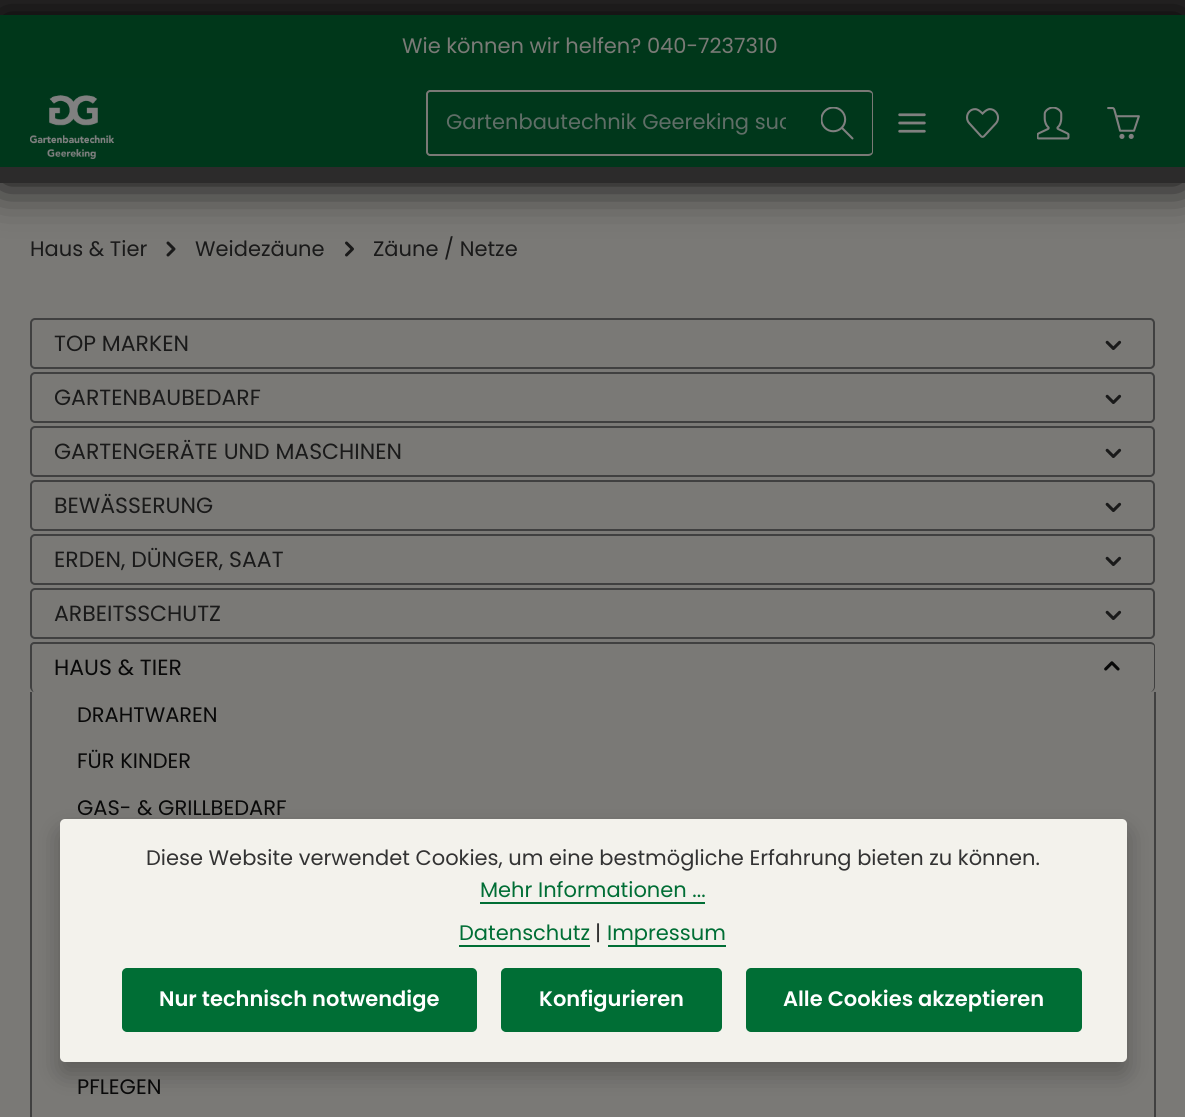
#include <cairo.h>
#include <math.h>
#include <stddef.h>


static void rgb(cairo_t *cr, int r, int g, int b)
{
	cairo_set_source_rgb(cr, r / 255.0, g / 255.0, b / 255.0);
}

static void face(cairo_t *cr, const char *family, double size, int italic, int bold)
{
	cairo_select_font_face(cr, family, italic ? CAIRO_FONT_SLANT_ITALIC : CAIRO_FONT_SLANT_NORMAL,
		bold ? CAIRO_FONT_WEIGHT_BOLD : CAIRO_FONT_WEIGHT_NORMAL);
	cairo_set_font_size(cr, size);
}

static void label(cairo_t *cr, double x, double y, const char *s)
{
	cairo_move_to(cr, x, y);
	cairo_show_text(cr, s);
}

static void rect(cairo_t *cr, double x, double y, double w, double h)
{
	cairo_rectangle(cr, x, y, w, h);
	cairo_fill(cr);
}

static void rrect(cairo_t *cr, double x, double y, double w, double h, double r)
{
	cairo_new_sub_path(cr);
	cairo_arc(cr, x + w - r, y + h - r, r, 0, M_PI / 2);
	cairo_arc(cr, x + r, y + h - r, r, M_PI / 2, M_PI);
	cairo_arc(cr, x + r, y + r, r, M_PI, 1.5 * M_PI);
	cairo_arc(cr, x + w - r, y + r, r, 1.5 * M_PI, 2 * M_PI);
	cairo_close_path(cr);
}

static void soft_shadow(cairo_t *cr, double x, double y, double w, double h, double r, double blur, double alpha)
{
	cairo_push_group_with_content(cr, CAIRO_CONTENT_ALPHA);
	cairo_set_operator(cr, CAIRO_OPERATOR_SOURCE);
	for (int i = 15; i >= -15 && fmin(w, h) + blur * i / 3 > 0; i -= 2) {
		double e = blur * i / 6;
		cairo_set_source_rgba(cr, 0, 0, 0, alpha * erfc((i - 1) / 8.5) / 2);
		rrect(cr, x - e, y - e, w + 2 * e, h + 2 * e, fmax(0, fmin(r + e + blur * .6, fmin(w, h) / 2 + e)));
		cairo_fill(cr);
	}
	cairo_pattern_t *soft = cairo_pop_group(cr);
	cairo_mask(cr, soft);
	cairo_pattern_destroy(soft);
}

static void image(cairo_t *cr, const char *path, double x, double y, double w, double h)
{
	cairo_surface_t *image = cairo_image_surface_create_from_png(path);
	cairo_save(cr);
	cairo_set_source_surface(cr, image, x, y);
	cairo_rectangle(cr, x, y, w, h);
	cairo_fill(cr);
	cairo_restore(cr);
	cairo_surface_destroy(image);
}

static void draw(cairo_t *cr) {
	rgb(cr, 255, 255, 255);
	cairo_paint(cr);
	image(cr, "image0.png", 0, 15, 1185, 63);
	rgb(cr, 44, 43, 43);
	rect(cr, 0, 0, 1185, 15);
	rgb(cr, 122, 121, 118);
	rect(cr, 0, 183, 1185, 934);
	cairo_save(cr);
	cairo_set_fill_rule(cr, CAIRO_FILL_RULE_EVEN_ODD);
	cairo_new_path(cr);
	cairo_move_to(cr, 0, 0);
	cairo_line_to(cr, 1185, 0);
	cairo_line_to(cr, 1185, 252);
	cairo_line_to(cr, 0, 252);
	cairo_close_path(cr);
	cairo_move_to(cr, 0, 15);
	cairo_line_to(cr, 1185, 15);
	cairo_line_to(cr, 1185, 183);
	cairo_line_to(cr, 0, 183);
	cairo_close_path(cr);
	cairo_clip(cr);
	rgb(cr, 0, 0, 0);
	soft_shadow(cr, 0, 15, 1185, 168, 0, 22.5, 1);
	cairo_restore(cr);
	face(cr, "Poppins", 21, 0, 0);
	rgb(cr, 122, 122, 118);
	label(cr, 402, 53, "Wie können wir helfen? 040-7237310");
	rgb(cr, 0, 55, 27);
	rect(cr, 0, 78, 1185, 89);
	image(cr, "image1.png", 30, 95, 84, 64);
	rgb(cr, 122, 121, 118);
	cairo_set_fill_rule(cr, CAIRO_FILL_RULE_EVEN_ODD);
	cairo_new_path(cr);
	cairo_move_to(cr, 430, 90);
	cairo_line_to(cr, 804, 90);
	cairo_line_to(cr, 804, 156);
	cairo_line_to(cr, 430, 156);
	cairo_curve_to(cr, 428, 156, 426, 154, 426, 152);
	cairo_line_to(cr, 426, 94);
	cairo_curve_to(cr, 426, 92, 428, 90, 430, 90);
	cairo_close_path(cr);
	cairo_move_to(cr, 430, 92);
	cairo_line_to(cr, 804, 92);
	cairo_line_to(cr, 804, 154);
	cairo_line_to(cr, 430, 154);
	cairo_curve_to(cr, 429, 154, 428, 153, 428, 152);
	cairo_line_to(cr, 428, 94);
	cairo_curve_to(cr, 428, 93, 429, 92, 430, 92);
	cairo_close_path(cr);
	cairo_fill(cr);
	cairo_save(cr);
	cairo_set_fill_rule(cr, CAIRO_FILL_RULE_WINDING);
	cairo_rectangle(cr, 446, 107, 340, 31);
	cairo_clip(cr);
	rgb(cr, 96, 110, 103);
	label(cr, 446, 129, "Gartenbautechnik Geereking suc");
	cairo_restore(cr);
	rgb(cr, 0, 55, 27);
	cairo_new_path(cr);
	cairo_move_to(cr, 803, 90);
	cairo_line_to(cr, 868, 90);
	cairo_curve_to(cr, 871, 90, 873, 92, 873, 95);
	cairo_line_to(cr, 873, 151);
	cairo_curve_to(cr, 873, 154, 871, 156, 868, 156);
	cairo_line_to(cr, 803, 156);
	cairo_close_path(cr);
	cairo_fill(cr);
	rgb(cr, 122, 121, 118);
	cairo_new_path(cr);
	cairo_move_to(cr, 802, 90);
	cairo_line_to(cr, 868, 90);
	cairo_curve_to(cr, 871, 90, 873, 92, 873, 94);
	cairo_line_to(cr, 873, 152);
	cairo_curve_to(cr, 873, 154, 871, 156, 868, 156);
	cairo_line_to(cr, 802, 156);
	cairo_close_path(cr);
	cairo_move_to(cr, 802, 92);
	cairo_line_to(cr, 868, 92);
	cairo_curve_to(cr, 870, 92, 872, 93, 872, 94);
	cairo_line_to(cr, 872, 152);
	cairo_curve_to(cr, 872, 153, 870, 154, 868, 154);
	cairo_line_to(cr, 802, 154);
	cairo_close_path(cr);
	cairo_fill(cr);
	image(cr, "image2.png", 821, 107, 33, 33);
	image(cr, "image3.png", 898, 113, 28, 20);
	image(cr, "image4.png", 966, 108, 33, 30);
	image(cr, "image5.png", 1037, 107, 33, 33);
	image(cr, "image6.png", 1107, 107, 33, 32);
	rgb(cr, 44, 43, 43);
	rect(cr, 0, 167, 1185, 16);
	rgb(cr, 26, 26, 26);
	label(cr, 30, 256, "Haus & Tier");
	image(cr, "image7.png", 166, 241, 10, 16);
	label(cr, 195, 256, "Weidezäune");
	image(cr, "image8.png", 345, 241, 9, 16);
	label(cr, 373, 256, "Zäune / Netze");
	rrect(cr, 31, 319, 1123, 49, 4);
	rgb(cr, 64, 64, 64);
	cairo_stroke(cr);
	face(cr, "Poppins", 22, 0, 0);
	rgb(cr, 26, 26, 26);
	label(cr, 54, 351, "TOP MARKEN");
	image(cr, "image9.png", 1105, 340, 17, 10);
	rrect(cr, 31, 373, 1123, 49, 4);
	rgb(cr, 64, 64, 64);
	cairo_stroke(cr);
	rgb(cr, 26, 26, 26);
	label(cr, 54, 405, "GARTENBAUBEDARF");
	image(cr, "image9.png", 1105, 394, 17, 10);
	rrect(cr, 31, 427, 1123, 49, 4);
	rgb(cr, 64, 64, 64);
	cairo_stroke(cr);
	rgb(cr, 26, 26, 26);
	label(cr, 54, 459, "GARTENGERÄTE UND MASCHINEN");
	image(cr, "image9.png", 1105, 448, 17, 10);
	rrect(cr, 31, 481, 1123, 49, 4);
	rgb(cr, 64, 64, 64);
	cairo_stroke(cr);
	rgb(cr, 26, 26, 26);
	label(cr, 54, 513, "BEWÄSSERUNG");
	image(cr, "image9.png", 1105, 502, 17, 10);
	rrect(cr, 31, 535, 1123, 49, 4);
	rgb(cr, 64, 64, 64);
	cairo_stroke(cr);
	rgb(cr, 26, 26, 26);
	label(cr, 54, 567, "ERDEN, DÜNGER, SAAT");
	image(cr, "image9.png", 1105, 556, 17, 10);
	rrect(cr, 31, 589, 1123, 49, 4);
	rgb(cr, 64, 64, 64);
	cairo_stroke(cr);
	rgb(cr, 26, 26, 26);
	label(cr, 54, 621, "ARBEITSSCHUTZ");
	image(cr, "image9.png", 1105, 610, 17, 10);
	rgb(cr, 64, 64, 64);
	cairo_new_path(cr);
	cairo_move_to(cr, 34, 642);
	cairo_line_to(cr, 1150, 642);
	cairo_curve_to(cr, 1153, 642, 1155, 644, 1155, 646);
	cairo_line_to(cr, 1155, 687);
	cairo_curve_to(cr, 1155, 689, 1153, 692, 1150, 692);
	cairo_line_to(cr, 34, 692);
	cairo_curve_to(cr, 32, 692, 30, 689, 30, 687);
	cairo_line_to(cr, 30, 646);
	cairo_curve_to(cr, 30, 644, 32, 642, 34, 642);
	cairo_close_path(cr);
	cairo_move_to(cr, 34, 644);
	cairo_line_to(cr, 1150, 644);
	cairo_curve_to(cr, 1152, 644, 1154, 645, 1154, 646);
	cairo_line_to(cr, 1154, 687);
	cairo_curve_to(cr, 1154, 689, 1152, 692, 1150, 692);
	cairo_line_to(cr, 34, 692);
	cairo_curve_to(cr, 33, 692, 32, 689, 32, 687);
	cairo_line_to(cr, 32, 646);
	cairo_curve_to(cr, 32, 645, 33, 644, 34, 644);
	cairo_close_path(cr);
	cairo_fill(cr);
	rgb(cr, 9, 9, 9);
	label(cr, 54, 675, "HAUS & TIER");
	image(cr, "image10.png", 1104, 661, 16, 10);
	rgb(cr, 64, 64, 64);
	rect(cr, 1154, 692, 2, 425);
	rect(cr, 30, 692, 2, 425);
	face(cr, "Poppins", 21, 0, 0);
	rgb(cr, 9, 9, 9);
	label(cr, 77, 722, "DRAHTWAREN");
	label(cr, 77, 768, "FÜR KINDER");
	label(cr, 77, 815, "GAS- & GRILLBEDARF");
	label(cr, 77, 1094, "PFLEGEN");
	rgb(cr, 0, 0, 0);
	soft_shadow(cr, 60, 831, 1067, 243, 5, 12, 0.25);
	rgb(cr, 243, 242, 236);
	rrect(cr, 60, 819, 1067, 243, 5);
	cairo_fill(cr);
	rgb(cr, 51, 51, 51);
	label(cr, 146, 865, "Diese Website verwendet Cookies, um eine bestmögliche Erfahrung bieten zu können.");
	rgb(cr, 0, 110, 53);
	label(cr, 480, 897, "Mehr Informationen ...");
	rect(cr, 480, 902, 225, 2);
	label(cr, 459, 940, "Datenschutz");
	rect(cr, 459, 945, 131, 2);
	rgb(cr, 51, 51, 51);
	label(cr, 595, 940, "|");
	rgb(cr, 0, 110, 53);
	rect(cr, 608, 945, 118, 2);
	label(cr, 607, 940, "Impressum");
	rrect(cr, 123, 969, 353, 62, 4);
	cairo_fill_preserve(cr);
	cairo_stroke(cr);
	face(cr, "Poppins SemiBold", 21, 0, 0);
	rgb(cr, 255, 255, 255);
	label(cr, 159, 1006, "Nur technisch notwendige");
	rgb(cr, 0, 110, 53);
	rrect(cr, 502, 969, 219, 62, 4);
	cairo_fill_preserve(cr);
	cairo_stroke(cr);
	rgb(cr, 255, 255, 255);
	label(cr, 539, 1006, "Konfigurieren");
	rgb(cr, 0, 110, 53);
	rrect(cr, 747, 969, 334, 62, 4);
	cairo_fill_preserve(cr);
	cairo_stroke(cr);
	rgb(cr, 255, 255, 255);
	label(cr, 783, 1006, "Alle Cookies akzeptieren");
}

int main(void) {
	cairo_surface_t *surface = cairo_image_surface_create(CAIRO_FORMAT_RGB24, 1185, 1117);
	cairo_t *cr = cairo_create(surface);
	cairo_font_options_t *options = cairo_font_options_create();
	cairo_font_options_set_hint_metrics(options, CAIRO_HINT_METRICS_OFF);
	cairo_font_options_set_hint_style(options, CAIRO_HINT_STYLE_NONE);
	cairo_set_font_options(cr, options);
	cairo_set_miter_limit(cr, 4);
	draw(cr);
	cairo_surface_write_to_png(surface, "render.png");
	cairo_font_options_destroy(options);
	cairo_destroy(cr);
	cairo_surface_destroy(surface);
	return 0;
}
